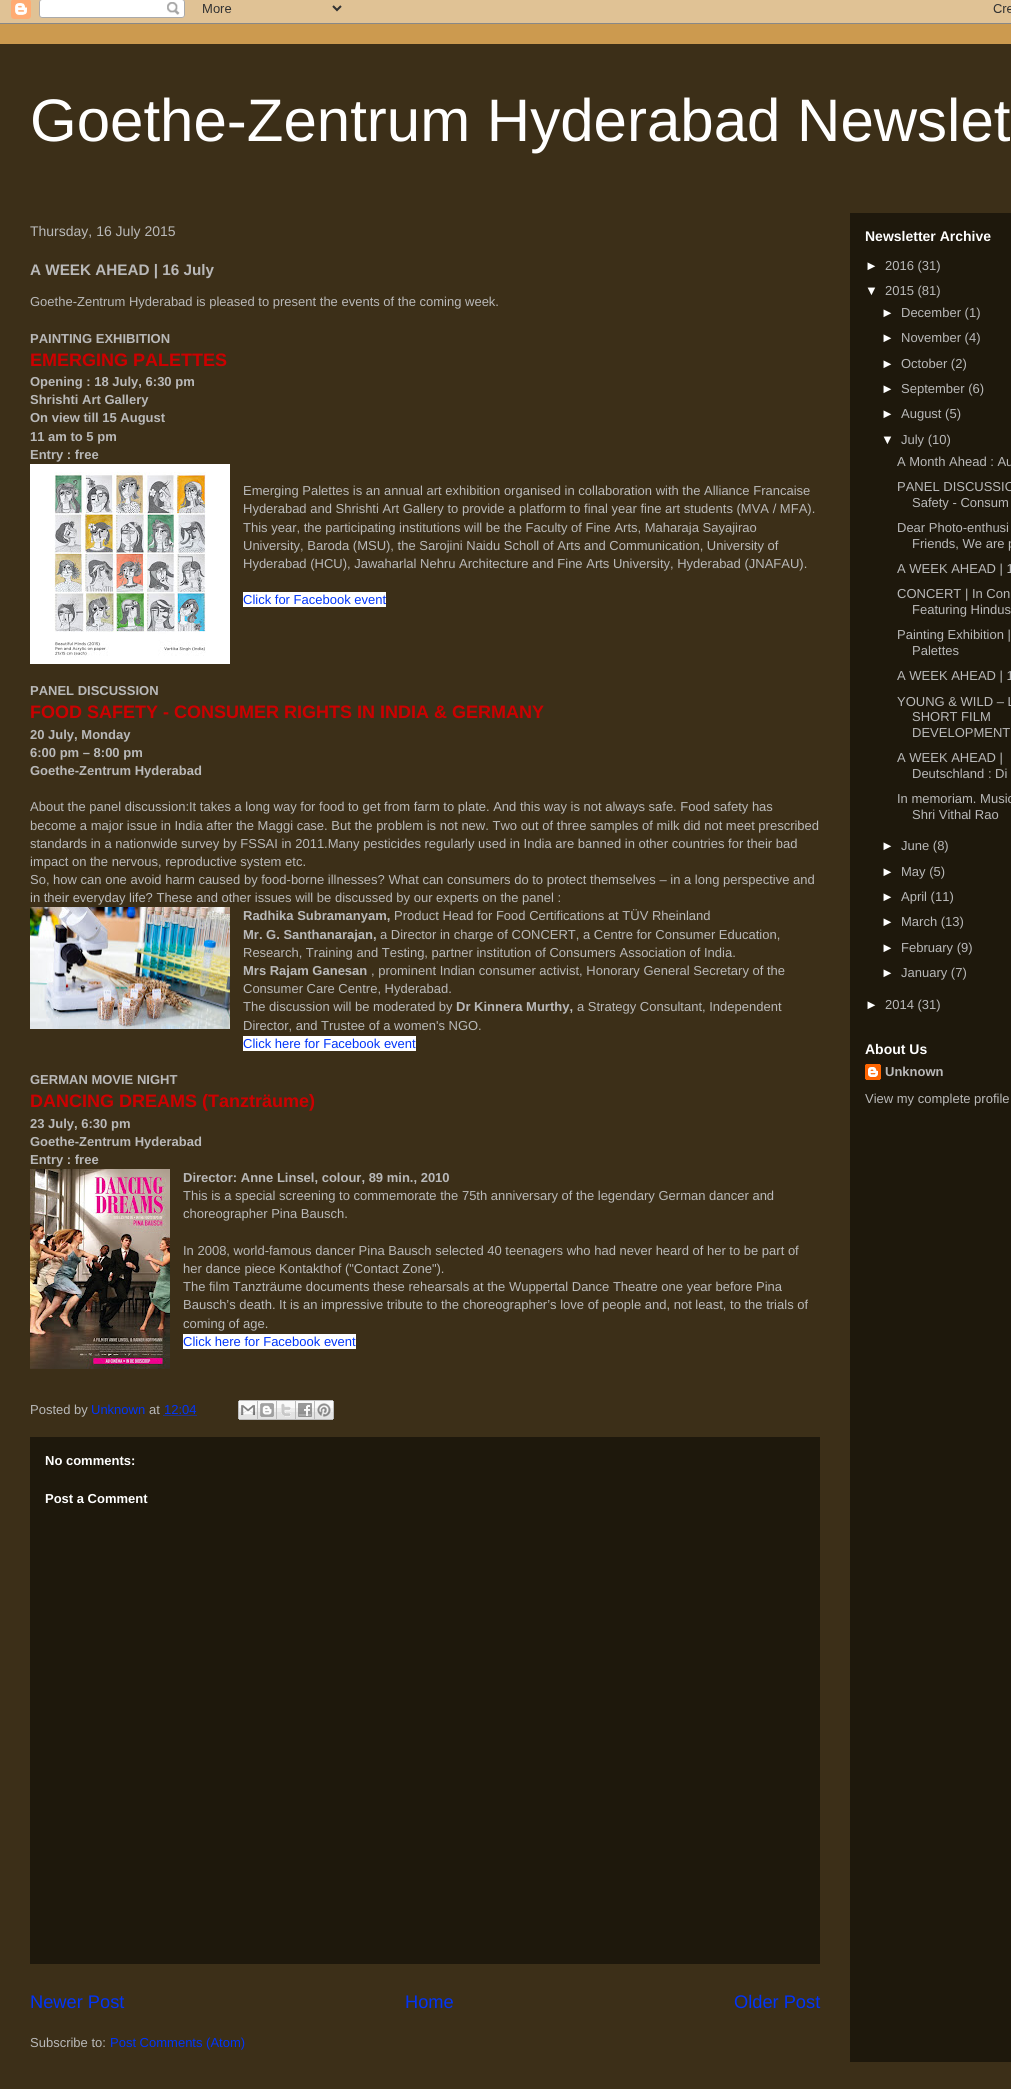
#include <cairo.h>
#include <math.h>
#include <stddef.h>


static void rgb(cairo_t *cr, int r, int g, int b)
{
	cairo_set_source_rgb(cr, r / 255.0, g / 255.0, b / 255.0);
}

static void face(cairo_t *cr, const char *family, double size, int italic, int bold)
{
	cairo_select_font_face(cr, family, italic ? CAIRO_FONT_SLANT_ITALIC : CAIRO_FONT_SLANT_NORMAL,
		bold ? CAIRO_FONT_WEIGHT_BOLD : CAIRO_FONT_WEIGHT_NORMAL);
	cairo_set_font_size(cr, size);
}

static void label(cairo_t *cr, double x, double y, const char *s)
{
	cairo_move_to(cr, x, y);
	cairo_show_text(cr, s);
}

static void rect(cairo_t *cr, double x, double y, double w, double h)
{
	cairo_rectangle(cr, x, y, w, h);
	cairo_fill(cr);
}

static void image(cairo_t *cr, const char *path, double x, double y, double w, double h)
{
	cairo_surface_t *image = cairo_image_surface_create_from_png(path);
	cairo_save(cr);
	cairo_set_source_surface(cr, image, x, y);
	cairo_rectangle(cr, x, y, w, h);
	cairo_fill(cr);
	cairo_restore(cr);
	cairo_surface_destroy(image);
}

static void draw(cairo_t *cr) {
	rgb(cr, 204, 154, 79);
	cairo_paint(cr);
	image(cr, "image0.png", 0, 0, 1011, 24);
	rgb(cr, 60, 47, 24);
	rect(cr, 0, 44, 1011, 2045);
	face(cr, "Liberation Sans", 60, 0, 0);
	rgb(cr, 255, 255, 255);
	label(cr, 30, 141, "Goethe-Zentrum Hyderabad Newslet");
	rgb(cr, 30, 24, 12);
	rect(cr, 850, 213, 161, 1849);
	face(cr, "Liberation Sans", 14, 0, 0);
	rgb(cr, 185, 185, 185);
	label(cr, 30, 236, "Thursday, 16 July 2015");
	face(cr, "Liberation Sans", 15.25, 0, 1);
	label(cr, 30, 275, "A WEEK AHEAD | 16 July");
	face(cr, "Liberation Sans", 13, 0, 0);
	label(cr, 30, 306, "Goethe-Zentrum Hyderabad is pleased to present the events of the coming week.");
	face(cr, "Liberation Sans", 13, 0, 1);
	label(cr, 30, 343, "PAINTING EXHIBITION");
	face(cr, "Liberation Sans", 18, 0, 1);
	rgb(cr, 204, 0, 0);
	label(cr, 30, 366, "EMERGING PALETTES");
	face(cr, "Liberation Sans", 13, 0, 1);
	rgb(cr, 185, 185, 185);
	label(cr, 30, 386, "Opening : 18 July, 6:30 pm");
	label(cr, 30, 404, "Shrishti Art Gallery");
	label(cr, 30, 422, "On view till 15 August");
	label(cr, 30, 441, "11 am to 5 pm");
	label(cr, 30, 459, "Entry : free");
	image(cr, "image1.png", 30, 464, 200, 200);
	face(cr, "Liberation Sans", 13, 0, 0);
	label(cr, 243, 495, "Emerging Palettes is an annual art exhibition organised in collaboration with the Alliance Francaise");
	label(cr, 243, 513, "Hyderabad and Shrishti Art Gallery to provide a platform to final year fine art students (MVA / MFA).");
	label(cr, 243, 532, "This year, the participating institutions will be the Faculty of Fine Arts, Maharaja Sayajirao");
	label(cr, 243, 550, "University, Baroda (MSU), the Sarojini Naidu Scholl of Arts and Communication, University of");
	label(cr, 243, 568, "Hyderabad (HCU), Jawaharlal Nehru Architecture and Fine Arts University, Hyderabad (JNAFAU).");
	rgb(cr, 255, 255, 255);
	rect(cr, 243, 592, 143, 15);
	rgb(cr, 0, 52, 249);
	label(cr, 243, 604, "Click for Facebook event");
	face(cr, "Liberation Sans", 13, 0, 1);
	rgb(cr, 185, 185, 185);
	label(cr, 30, 695, "PANEL DISCUSSION");
	face(cr, "Liberation Sans", 18, 0, 1);
	rgb(cr, 204, 0, 0);
	label(cr, 30, 718, "FOOD SAFETY - CONSUMER RIGHTS IN INDIA & GERMANY");
	face(cr, "Liberation Sans", 13, 0, 1);
	rgb(cr, 185, 185, 185);
	label(cr, 30, 739, "20 July, Monday");
	label(cr, 30, 757, "6:00 pm – 8:00 pm");
	label(cr, 30, 775, "Goethe-Zentrum Hyderabad");
	face(cr, "Liberation Sans", 13, 0, 0);
	label(cr, 30, 811, "About the panel discussion:It takes a long way for food to get from farm to plate. And this way is not always safe. Food safety has");
	label(cr, 30, 830, "become a major issue in India after the Maggi case. But the problem is not new. Two out of three samples of milk did not meet prescribed");
	label(cr, 30, 848, "standards in a nationwide survey by FSSAI in 2011.Many pesticides regularly used in India are banned in other countries for their bad");
	label(cr, 30, 866, "impact on the nervous, reproductive system etc.");
	label(cr, 30, 884, "So, how can one avoid harm caused by food-borne illnesses? What can consumers do to protect themselves – in a long perspective and");
	label(cr, 30, 902, "in their everyday life? These and other issues will be discussed by our experts on the panel :");
	image(cr, "image2.png", 30, 907, 200, 122);
	face(cr, "Liberation Sans", 13, 0, 1);
	label(cr, 243, 920, "Radhika Subramanyam,");
	face(cr, "Liberation Sans", 13, 0, 0);
	label(cr, 394, 920, "Product Head for Food Certifications at TÜV Rheinland");
	face(cr, "Liberation Sans", 13, 0, 1);
	label(cr, 243, 939, "Mr. G. Santhanarajan,");
	face(cr, "Liberation Sans", 13, 0, 0);
	label(cr, 380, 939, "a Director in charge of CONCERT, a Centre for Consumer Education,");
	label(cr, 243, 957, "Research, Training and Testing, partner institution of Consumers Association of India.");
	face(cr, "Liberation Sans", 13, 0, 1);
	label(cr, 243, 975, "Mrs Rajam Ganesan");
	face(cr, "Liberation Sans", 13, 0, 0);
	label(cr, 371, 975, ", prominent Indian consumer activist, Honorary General Secretary of the");
	label(cr, 243, 993, "Consumer Care Centre, Hyderabad.");
	label(cr, 243, 1011, "The discussion will be moderated by");
	face(cr, "Liberation Sans", 13, 0, 1);
	label(cr, 456, 1011, "Dr Kinnera Murthy,");
	face(cr, "Liberation Sans", 13, 0, 0);
	label(cr, 577, 1011, "a Strategy Consultant, Independent");
	label(cr, 243, 1030, "Director, and Trustee of a women's NGO.");
	rgb(cr, 255, 255, 255);
	rect(cr, 243, 1036, 173, 15);
	rgb(cr, 0, 52, 249);
	label(cr, 243, 1048, "Click here for Facebook event");
	face(cr, "Liberation Sans", 13, 0, 1);
	rgb(cr, 185, 185, 185);
	label(cr, 30, 1084, "GERMAN MOVIE NIGHT");
	face(cr, "Liberation Sans", 18, 0, 1);
	rgb(cr, 204, 0, 0);
	label(cr, 30, 1107, "DANCING DREAMS (Tanzträume)");
	face(cr, "Liberation Sans", 13, 0, 1);
	rgb(cr, 185, 185, 185);
	label(cr, 30, 1128, "23 July, 6:30 pm");
	label(cr, 30, 1146, "Goethe-Zentrum Hyderabad");
	label(cr, 30, 1164, "Entry : free");
	image(cr, "image3.png", 30, 1169, 140, 200);
	label(cr, 183, 1182, "Director: Anne Linsel, colour, 89 min., 2010");
	face(cr, "Liberation Sans", 13, 0, 0);
	label(cr, 183, 1200, "This is a special screening to commemorate the 75th anniversary of the legendary German dancer and");
	label(cr, 183, 1218, "choreographer Pina Bausch.");
	label(cr, 183, 1255, "In 2008, world-famous dancer Pina Bausch selected 40 teenagers who had never heard of her to be part of");
	label(cr, 183, 1273, "her dance piece Kontakthof (\"Contact Zone\").");
	label(cr, 183, 1291, "The film Tanzträume documents these rehearsals at the Wuppertal Dance Theatre one year before Pina");
	label(cr, 183, 1309, "Bausch’s death. It is an impressive tribute to the choreographer’s love of people and, not least, to the trials of");
	label(cr, 183, 1328, "coming of age.");
	rgb(cr, 255, 255, 255);
	rect(cr, 183, 1334, 173, 15);
	rgb(cr, 0, 52, 249);
	label(cr, 183, 1346, "Click here for Facebook event");
	rgb(cr, 185, 185, 185);
	label(cr, 30, 1414, "Posted by");
	rgb(cr, 0, 52, 249);
	label(cr, 91, 1414, "Unknown");
	rgb(cr, 185, 185, 185);
	label(cr, 149, 1414, "at");
	rgb(cr, 0, 52, 249);
	label(cr, 164, 1414, "12:04");
	cairo_new_path(cr);
	cairo_move_to(cr, 163.5, 1415.5);
	cairo_line_to(cr, 196.5, 1415.5);
	cairo_set_line_width(cr, 1);
	cairo_set_dash(cr, (double[]){1, 1}, 2, 0);
	cairo_stroke(cr);
	image(cr, "image4.png", 238, 1400, 20, 20);
	image(cr, "image5.png", 258, 1400, 19, 20);
	image(cr, "image6.png", 277, 1400, 19, 20);
	image(cr, "image7.png", 296, 1400, 19, 20);
	image(cr, "image8.png", 315, 1400, 19, 20);
	rgb(cr, 30, 24, 12);
	rect(cr, 30, 1437, 790, 527);
	face(cr, "Liberation Sans", 13, 0, 1);
	rgb(cr, 255, 255, 255);
	label(cr, 45, 1465, "No comments:");
	label(cr, 45, 1503, "Post a Comment");
	face(cr, "Liberation Sans", 18.25, 0, 0);
	rgb(cr, 0, 52, 249);
	label(cr, 30, 2008, "Newer Post");
	label(cr, 405, 2008, "Home");
	label(cr, 734, 2008, "Older Post");
	face(cr, "Liberation Sans", 13, 0, 0);
	rgb(cr, 185, 185, 185);
	label(cr, 30, 2047, "Subscribe to:");
	rgb(cr, 0, 52, 249);
	label(cr, 110, 2047, "Post Comments (Atom)");
	face(cr, "Liberation Sans", 14, 0, 1);
	rgb(cr, 255, 255, 255);
	label(cr, 865, 241, "Newsletter Archive");
	face(cr, "Liberation Sans", 13, 0, 0);
	label(cr, 865, 270, "►");
	rgb(cr, 185, 185, 185);
	label(cr, 885, 270, "2016 (31)");
	rgb(cr, 255, 255, 255);
	label(cr, 865, 295, "▼");
	rgb(cr, 185, 185, 185);
	label(cr, 885, 295, "2015 (81)");
	rgb(cr, 255, 255, 255);
	label(cr, 881, 317, "►");
	rgb(cr, 185, 185, 185);
	label(cr, 901, 317, "December (1)");
	rgb(cr, 255, 255, 255);
	label(cr, 881, 342, "►");
	rgb(cr, 185, 185, 185);
	label(cr, 901, 342, "November (4)");
	rgb(cr, 255, 255, 255);
	label(cr, 881, 368, "►");
	rgb(cr, 185, 185, 185);
	label(cr, 901, 368, "October (2)");
	rgb(cr, 255, 255, 255);
	label(cr, 881, 393, "►");
	rgb(cr, 185, 185, 185);
	label(cr, 901, 393, "September (6)");
	rgb(cr, 255, 255, 255);
	label(cr, 881, 418, "►");
	rgb(cr, 185, 185, 185);
	label(cr, 901, 418, "August (5)");
	rgb(cr, 255, 255, 255);
	label(cr, 881, 444, "▼");
	rgb(cr, 185, 185, 185);
	label(cr, 901, 444, "July (10)");
	label(cr, 897, 466, "A Month Ahead : Au");
	label(cr, 897, 491, "PANEL DISCUSSIO");
	label(cr, 912, 507, "Safety - Consum");
	label(cr, 897, 532, "Dear Photo-enthusi");
	label(cr, 912, 548, "Friends, We are p");
	label(cr, 897, 573, "A WEEK AHEAD | 1");
	label(cr, 897, 598, "CONCERT | In Con");
	label(cr, 912, 614, "Featuring Hindus");
	label(cr, 897, 639, "Painting Exhibition |");
	label(cr, 912, 655, "Palettes");
	label(cr, 897, 680, "A WEEK AHEAD | 1");
	label(cr, 897, 706, "YOUNG & WILD – L");
	label(cr, 912, 721, "SHORT FILM");
	label(cr, 912, 737, "DEVELOPMENT");
	label(cr, 897, 762, "A WEEK AHEAD |");
	label(cr, 912, 778, "Deutschland : Di");
	label(cr, 897, 803, "In memoriam. Music");
	label(cr, 912, 819, "Shri Vithal Rao");
	rgb(cr, 255, 255, 255);
	label(cr, 881, 850, "►");
	rgb(cr, 185, 185, 185);
	label(cr, 901, 850, "June (8)");
	rgb(cr, 255, 255, 255);
	label(cr, 881, 876, "►");
	rgb(cr, 185, 185, 185);
	label(cr, 901, 876, "May (5)");
	rgb(cr, 255, 255, 255);
	label(cr, 881, 901, "►");
	rgb(cr, 185, 185, 185);
	label(cr, 901, 901, "April (11)");
	rgb(cr, 255, 255, 255);
	label(cr, 881, 926, "►");
	rgb(cr, 185, 185, 185);
	label(cr, 901, 926, "March (13)");
	rgb(cr, 255, 255, 255);
	label(cr, 881, 952, "►");
	rgb(cr, 185, 185, 185);
	label(cr, 901, 952, "February (9)");
	rgb(cr, 255, 255, 255);
	label(cr, 881, 977, "►");
	rgb(cr, 185, 185, 185);
	label(cr, 901, 977, "January (7)");
	rgb(cr, 255, 255, 255);
	label(cr, 865, 1009, "►");
	rgb(cr, 185, 185, 185);
	label(cr, 885, 1009, "2014 (31)");
	face(cr, "Liberation Sans", 14, 0, 1);
	rgb(cr, 255, 255, 255);
	label(cr, 865, 1054, "About Us");
	image(cr, "image9.png", 865, 1064, 16, 16);
	face(cr, "Liberation Sans", 13, 0, 1);
	rgb(cr, 185, 185, 185);
	label(cr, 885, 1076, "Unknown");
	face(cr, "Liberation Sans", 13, 0, 0);
	label(cr, 865, 1103, "View my complete profile");
}

int main(void) {
	cairo_surface_t *surface = cairo_image_surface_create(CAIRO_FORMAT_RGB24, 1011, 2089);
	cairo_t *cr = cairo_create(surface);
	cairo_font_options_t *options = cairo_font_options_create();
	cairo_font_options_set_hint_metrics(options, CAIRO_HINT_METRICS_OFF);
	cairo_font_options_set_hint_style(options, CAIRO_HINT_STYLE_NONE);
	cairo_set_font_options(cr, options);
	cairo_set_miter_limit(cr, 4);
	draw(cr);
	cairo_surface_write_to_png(surface, "render.png");
	cairo_font_options_destroy(options);
	cairo_destroy(cr);
	cairo_surface_destroy(surface);
	return 0;
}
